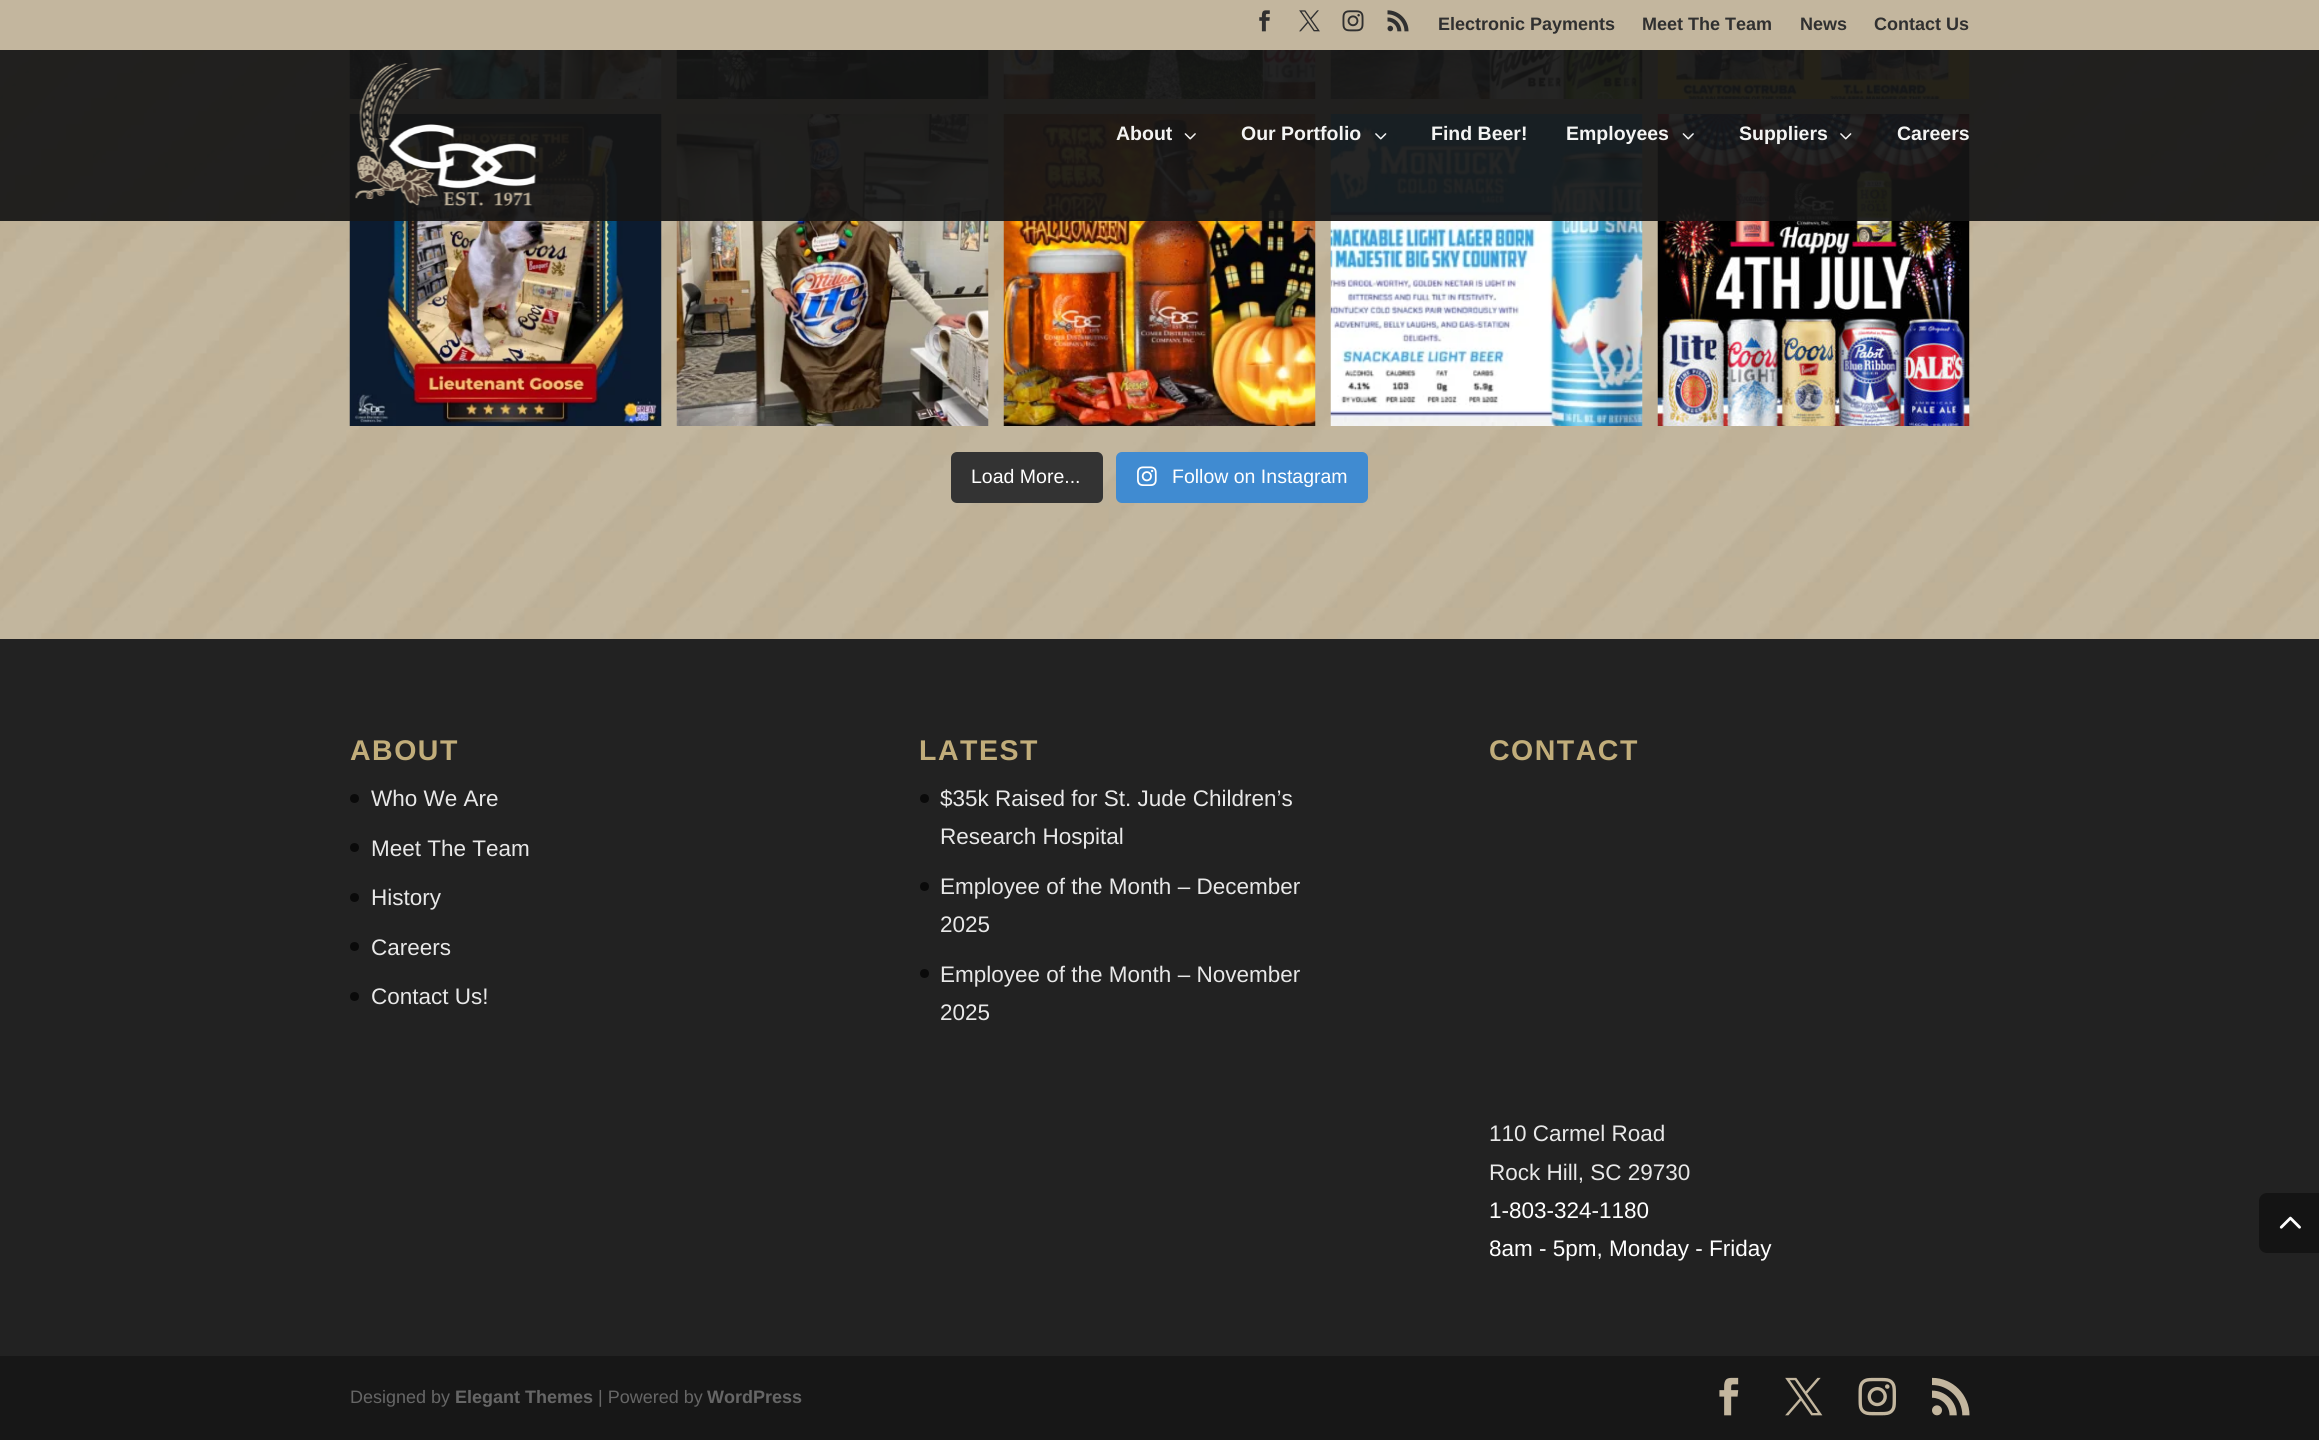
#include <cairo.h>
#include <math.h>
#include <stddef.h>


static void rgb(cairo_t *cr, int r, int g, int b)
{
	cairo_set_source_rgb(cr, r / 255.0, g / 255.0, b / 255.0);
}

static void face(cairo_t *cr, const char *family, double size, int italic, int bold)
{
	cairo_select_font_face(cr, family, italic ? CAIRO_FONT_SLANT_ITALIC : CAIRO_FONT_SLANT_NORMAL,
		bold ? CAIRO_FONT_WEIGHT_BOLD : CAIRO_FONT_WEIGHT_NORMAL);
	cairo_set_font_size(cr, size);
}

static void label(cairo_t *cr, double x, double y, const char *s)
{
	cairo_move_to(cr, x, y);
	cairo_show_text(cr, s);
}

static void tracked(cairo_t *cr, double x, double y, const char *s, double letter, double word)
{
	cairo_move_to(cr, x, y);
	while (*s) {
		char ch[5] = {0};
		int n = 0;
		do ch[n++] = *s++; while ((*s & 0xC0) == 0x80);
		cairo_show_text(cr, ch);
		cairo_rel_move_to(cr, letter + word * (*ch == ' '), 0);
	}
}

static void rect(cairo_t *cr, double x, double y, double w, double h)
{
	cairo_rectangle(cr, x, y, w, h);
	cairo_fill(cr);
}

static void rrect(cairo_t *cr, double x, double y, double w, double h, double r)
{
	cairo_new_sub_path(cr);
	cairo_arc(cr, x + w - r, y + h - r, r, 0, M_PI / 2);
	cairo_arc(cr, x + r, y + h - r, r, M_PI / 2, M_PI);
	cairo_arc(cr, x + r, y + r, r, M_PI, 1.5 * M_PI);
	cairo_arc(cr, x + w - r, y + r, r, 1.5 * M_PI, 2 * M_PI);
	cairo_close_path(cr);
}

static void image(cairo_t *cr, const char *path, double x, double y, double w, double h)
{
	cairo_surface_t *image = cairo_image_surface_create_from_png(path);
	cairo_save(cr);
	cairo_set_source_surface(cr, image, x, y);
	cairo_rectangle(cr, x, y, w, h);
	cairo_fill(cr);
	cairo_restore(cr);
	cairo_surface_destroy(image);
}

static void draw(cairo_t *cr) {
	rgb(cr, 34, 34, 34);
	cairo_paint(cr);
	rgb(cr, 195, 182, 158);
	rect(cr, 0, 0, 2319, 50);
	image(cr, "image0.png", 1259, 10, 11, 22);
	image(cr, "image1.png", 1299, 10, 21, 22);
	image(cr, "image2.png", 1342, 10, 22, 22);
	image(cr, "image3.png", 1387, 10, 22, 22);
	face(cr, "Liberation Sans", 18, 0, 1);
	rgb(cr, 48, 48, 48);
	label(cr, 1438, 30, "Electronic Payments");
	label(cr, 1642, 30, "Meet The Team");
	label(cr, 1800, 30, "News");
	label(cr, 1874, 30, "Contact Us");
	image(cr, "image9.png", 0, 50, 2319, 589);
	image(cr, "image10.png", 349, 50, 313, 49);
	image(cr, "image11.png", 676, 50, 313, 49);
	image(cr, "image12.png", 1003, 50, 313, 49);
	image(cr, "image13.png", 1330, 50, 313, 49);
	image(cr, "image14.png", 1657, 50, 313, 49);
	image(cr, "image15.png", 349, 114, 313, 312);
	image(cr, "image16.png", 676, 114, 313, 312);
	image(cr, "image17.png", 1003, 114, 313, 312);
	image(cr, "image18.png", 1330, 114, 313, 312);
	image(cr, "image19.png", 1657, 114, 313, 312);
	cairo_set_source_rgba(cr, 0.086, 0.086, 0.086, 0.93);
	rect(cr, 0, 50, 2319, 171);
	image(cr, "image4.png", 355, 63, 181, 143);
	face(cr, "Liberation Sans", 19.5, 0, 1);
	rgb(cr, 244, 244, 243);
	label(cr, 1116, 140, "About");
	image(cr, "image5.png", 1184, 133, 12, 7);
	label(cr, 1241, 140, "Our Portfolio");
	image(cr, "image6.png", 1375, 133, 12, 7);
	label(cr, 1431, 140, "Find Beer!");
	label(cr, 1566, 140, "Employees");
	image(cr, "image7.png", 1682, 133, 12, 7);
	label(cr, 1739, 140, "Suppliers");
	image(cr, "image8.png", 1840, 133, 12, 7);
	label(cr, 1897, 140, "Careers");
	rgb(cr, 51, 51, 51);
	rrect(cr, 951, 452, 152, 51, 6);
	cairo_fill(cr);
	face(cr, "Liberation Sans", 19.5, 0, 0);
	rgb(cr, 255, 255, 255);
	label(cr, 971, 483, "Load More...");
	rgb(cr, 64, 139, 209);
	rrect(cr, 1116, 452, 252, 51, 6);
	cairo_fill(cr);
	image(cr, "image20.png", 1137, 466, 20, 20);
	rgb(cr, 255, 255, 255);
	label(cr, 1172, 483, "Follow on Instagram");
	face(cr, "Liberation Sans", 28.5, 0, 1);
	rgb(cr, 193, 173, 122);
	tracked(cr, 350, 760, "ABOUT", 1.5, 0);
	rgb(cr, 10, 10, 10);
	cairo_new_path(cr);
	cairo_arc(cr, 354.5, 798.5, 4.5, 0, 2 * M_PI);
	cairo_fill(cr);
	face(cr, "Liberation Sans", 22.5, 0, 0);
	rgb(cr, 232, 232, 232);
	label(cr, 371, 806, "Who We Are");
	rgb(cr, 10, 10, 10);
	cairo_new_path(cr);
	cairo_arc(cr, 354.5, 847.5, 4.5, 0, 2 * M_PI);
	cairo_fill(cr);
	rgb(cr, 232, 232, 232);
	label(cr, 371, 856, "Meet The Team");
	rgb(cr, 10, 10, 10);
	cairo_new_path(cr);
	cairo_arc(cr, 354.5, 897.5, 4.5, 0, 2 * M_PI);
	cairo_fill(cr);
	rgb(cr, 232, 232, 232);
	label(cr, 371, 905, "History");
	rgb(cr, 10, 10, 10);
	cairo_new_path(cr);
	cairo_arc(cr, 354.5, 946.5, 4.5, 0, 2 * M_PI);
	cairo_fill(cr);
	rgb(cr, 232, 232, 232);
	label(cr, 371, 955, "Careers");
	rgb(cr, 10, 10, 10);
	cairo_new_path(cr);
	cairo_arc(cr, 354.5, 996.5, 4.5, 0, 2 * M_PI);
	cairo_fill(cr);
	rgb(cr, 232, 232, 232);
	label(cr, 371, 1004, "Contact Us!");
	face(cr, "Liberation Sans", 28.5, 0, 1);
	rgb(cr, 193, 173, 122);
	tracked(cr, 919, 760, "LATEST", 1.5, 0);
	rgb(cr, 10, 10, 10);
	cairo_new_path(cr);
	cairo_arc(cr, 924.5, 798.5, 4.5, 0, 2 * M_PI);
	cairo_fill(cr);
	face(cr, "Liberation Sans", 22.5, 0, 0);
	rgb(cr, 232, 232, 232);
	label(cr, 940, 806, "$35k Raised for St. Jude Children’s");
	label(cr, 940, 844, "Research Hospital");
	rgb(cr, 10, 10, 10);
	cairo_new_path(cr);
	cairo_arc(cr, 924.5, 886.5, 4.5, 0, 2 * M_PI);
	cairo_fill(cr);
	rgb(cr, 232, 232, 232);
	label(cr, 940, 894, "Employee of the Month – December");
	label(cr, 940, 932, "2025");
	rgb(cr, 10, 10, 10);
	cairo_new_path(cr);
	cairo_arc(cr, 924.5, 973.5, 4.5, 0, 2 * M_PI);
	cairo_fill(cr);
	rgb(cr, 232, 232, 232);
	label(cr, 940, 982, "Employee of the Month – November");
	label(cr, 940, 1020, "2025");
	face(cr, "Liberation Sans", 28.5, 0, 1);
	rgb(cr, 193, 173, 122);
	tracked(cr, 1489, 760, "CONTACT", 1.5, 0);
	face(cr, "Liberation Sans", 22.5, 0, 0);
	rgb(cr, 232, 232, 232);
	label(cr, 1489, 1141, "110 Carmel Road");
	label(cr, 1489, 1180, "Rock Hill, SC 29730");
	rgb(cr, 255, 255, 255);
	label(cr, 1489, 1218, "1-803-324-1180");
	label(cr, 1489, 1256, "8am - 5pm, Monday - Friday");
	rgb(cr, 23, 23, 23);
	rect(cr, 0, 1356, 2319, 84);
	face(cr, "Liberation Sans", 18, 0, 0);
	rgb(cr, 102, 102, 102);
	label(cr, 350, 1403, "Designed by");
	face(cr, "Liberation Sans", 18, 0, 1);
	label(cr, 455, 1403, "Elegant Themes");
	face(cr, "Liberation Sans", 18, 0, 0);
	label(cr, 598, 1403, "| Powered by");
	face(cr, "Liberation Sans", 18, 0, 1);
	label(cr, 707, 1403, "WordPress");
	image(cr, "image21.png", 1719, 1377, 20, 39);
	image(cr, "image22.png", 1785, 1377, 38, 39);
	image(cr, "image23.png", 1858, 1377, 38, 39);
	image(cr, "image24.png", 1932, 1377, 38, 39);
	rgb(cr, 20, 20, 20);
	cairo_new_path(cr);
	cairo_move_to(cr, 2267, 1193);
	cairo_line_to(cr, 2319, 1193);
	cairo_line_to(cr, 2319, 1253);
	cairo_line_to(cr, 2267, 1253);
	cairo_curve_to(cr, 2262.5, 1253, 2259, 1249.5, 2259, 1245);
	cairo_line_to(cr, 2259, 1201);
	cairo_curve_to(cr, 2259, 1196.5, 2262.5, 1193, 2267, 1193);
	cairo_close_path(cr);
	cairo_fill(cr);
	image(cr, "image25.png", 2279, 1216, 22, 13);
}

int main(void) {
	cairo_surface_t *surface = cairo_image_surface_create(CAIRO_FORMAT_RGB24, 2319, 1440);
	cairo_t *cr = cairo_create(surface);
	cairo_font_options_t *options = cairo_font_options_create();
	cairo_font_options_set_hint_metrics(options, CAIRO_HINT_METRICS_OFF);
	cairo_font_options_set_hint_style(options, CAIRO_HINT_STYLE_NONE);
	cairo_set_font_options(cr, options);
	cairo_set_miter_limit(cr, 4);
	draw(cr);
	cairo_surface_write_to_png(surface, "render.png");
	cairo_font_options_destroy(options);
	cairo_destroy(cr);
	cairo_surface_destroy(surface);
	return 0;
}
